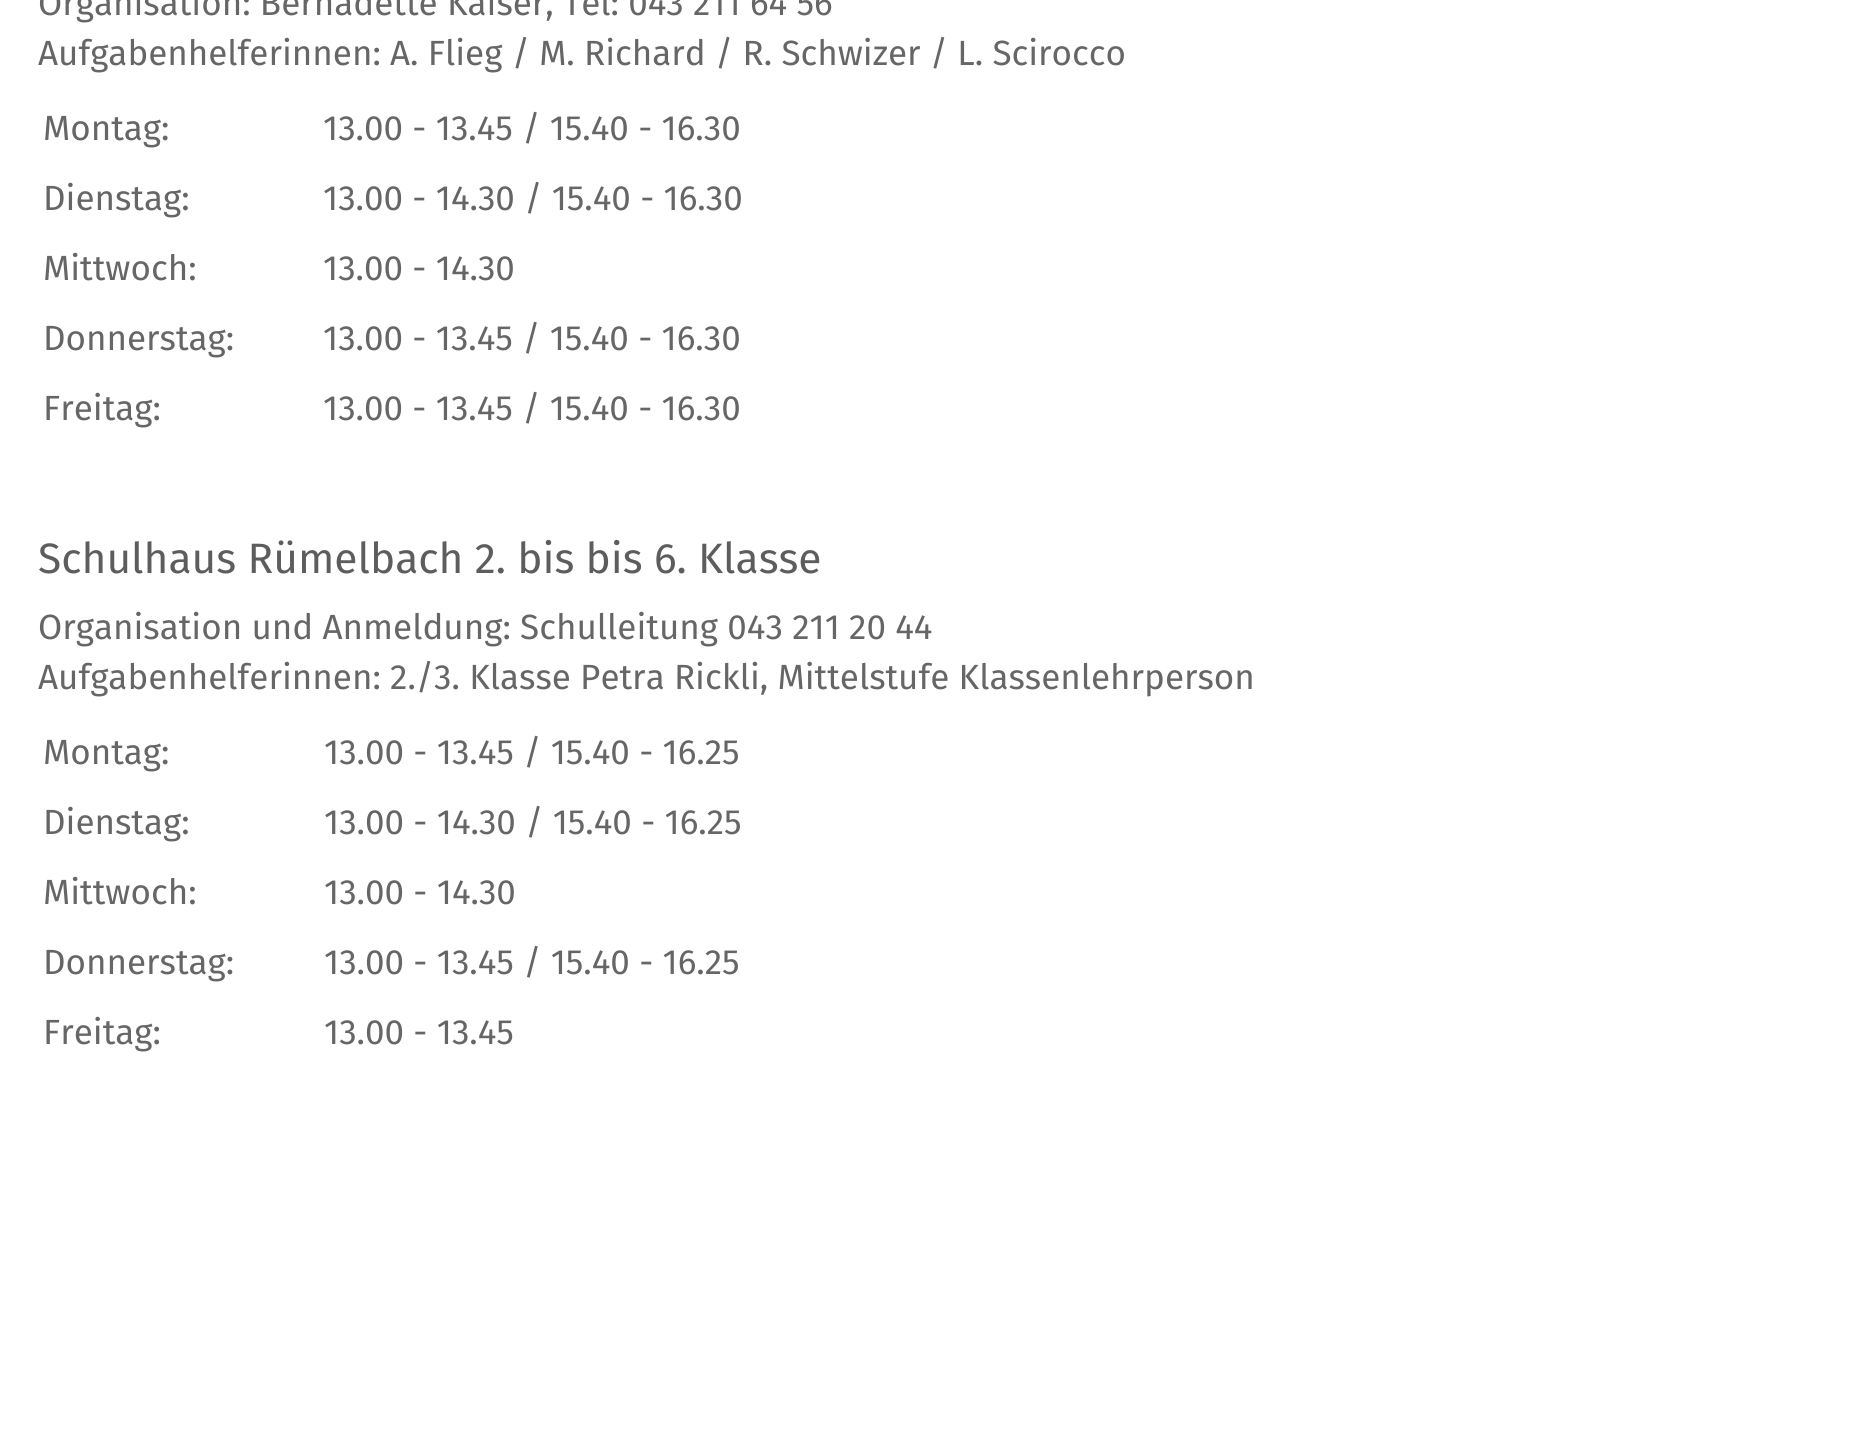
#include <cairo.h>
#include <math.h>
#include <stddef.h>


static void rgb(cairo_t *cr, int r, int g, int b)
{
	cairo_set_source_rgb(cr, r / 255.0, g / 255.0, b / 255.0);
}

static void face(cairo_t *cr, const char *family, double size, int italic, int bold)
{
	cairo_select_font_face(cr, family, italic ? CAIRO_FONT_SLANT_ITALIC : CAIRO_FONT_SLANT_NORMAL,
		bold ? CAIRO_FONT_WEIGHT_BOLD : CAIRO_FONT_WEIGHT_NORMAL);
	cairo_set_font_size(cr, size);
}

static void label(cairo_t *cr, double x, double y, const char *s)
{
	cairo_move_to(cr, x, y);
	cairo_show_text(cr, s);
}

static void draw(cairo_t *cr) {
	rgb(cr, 255, 255, 255);
	cairo_paint(cr);
	face(cr, "Fira Sans", 35, 0, 0);
	rgb(cr, 102, 102, 102);
	label(cr, 38, 15, "Organisation: Bernadette Kaiser, Tel: 043 211 64 56");
	label(cr, 38, 65, "Aufgabenhelferinnen: A. Flieg / M. Richard / R. Schwizer / L. Scirocco");
	label(cr, 43, 140, "Montag:");
	label(cr, 323, 140, "13.00 - 13.45 / 15.40 - 16.30");
	label(cr, 43, 210, "Dienstag:");
	label(cr, 323, 210, "13.00 - 14.30 / 15.40 - 16.30");
	label(cr, 43, 280, "Mittwoch:");
	label(cr, 323, 280, "13.00 - 14.30");
	label(cr, 43, 350, "Donnerstag:");
	label(cr, 323, 350, "13.00 - 13.45 / 15.40 - 16.30");
	label(cr, 43, 420, "Freitag:");
	label(cr, 323, 420, "13.00 - 13.45 / 15.40 - 16.30");
	face(cr, "Fira Sans", 42.5, 0, 0);
	rgb(cr, 93, 93, 93);
	label(cr, 38, 573, "Schulhaus Rümelbach 2. bis bis 6. Klasse");
	face(cr, "Fira Sans", 35, 0, 0);
	rgb(cr, 102, 102, 102);
	label(cr, 38, 639, "Organisation und Anmeldung: Schulleitung 043 211 20 44");
	label(cr, 38, 689, "Aufgabenhelferinnen: 2./3. Klasse Petra Rickli, Mittelstufe Klassenlehrperson");
	label(cr, 43, 764, "Montag:");
	label(cr, 324, 764, "13.00 - 13.45 / 15.40 - 16.25");
	label(cr, 43, 834, "Dienstag:");
	label(cr, 324, 834, "13.00 - 14.30 / 15.40 - 16.25");
	label(cr, 43, 904, "Mittwoch:");
	label(cr, 324, 904, "13.00 - 14.30");
	label(cr, 43, 974, "Donnerstag:");
	label(cr, 324, 974, "13.00 - 13.45 / 15.40 - 16.25");
	label(cr, 43, 1044, "Freitag:");
	label(cr, 324, 1044, "13.00 - 13.45");
}

int main(void) {
	cairo_surface_t *surface = cairo_image_surface_create(CAIRO_FORMAT_RGB24, 1862, 1439);
	cairo_t *cr = cairo_create(surface);
	cairo_font_options_t *options = cairo_font_options_create();
	cairo_font_options_set_hint_metrics(options, CAIRO_HINT_METRICS_OFF);
	cairo_font_options_set_hint_style(options, CAIRO_HINT_STYLE_NONE);
	cairo_set_font_options(cr, options);
	cairo_set_miter_limit(cr, 4);
	draw(cr);
	cairo_surface_write_to_png(surface, "render.png");
	cairo_font_options_destroy(options);
	cairo_destroy(cr);
	cairo_surface_destroy(surface);
	return 0;
}
